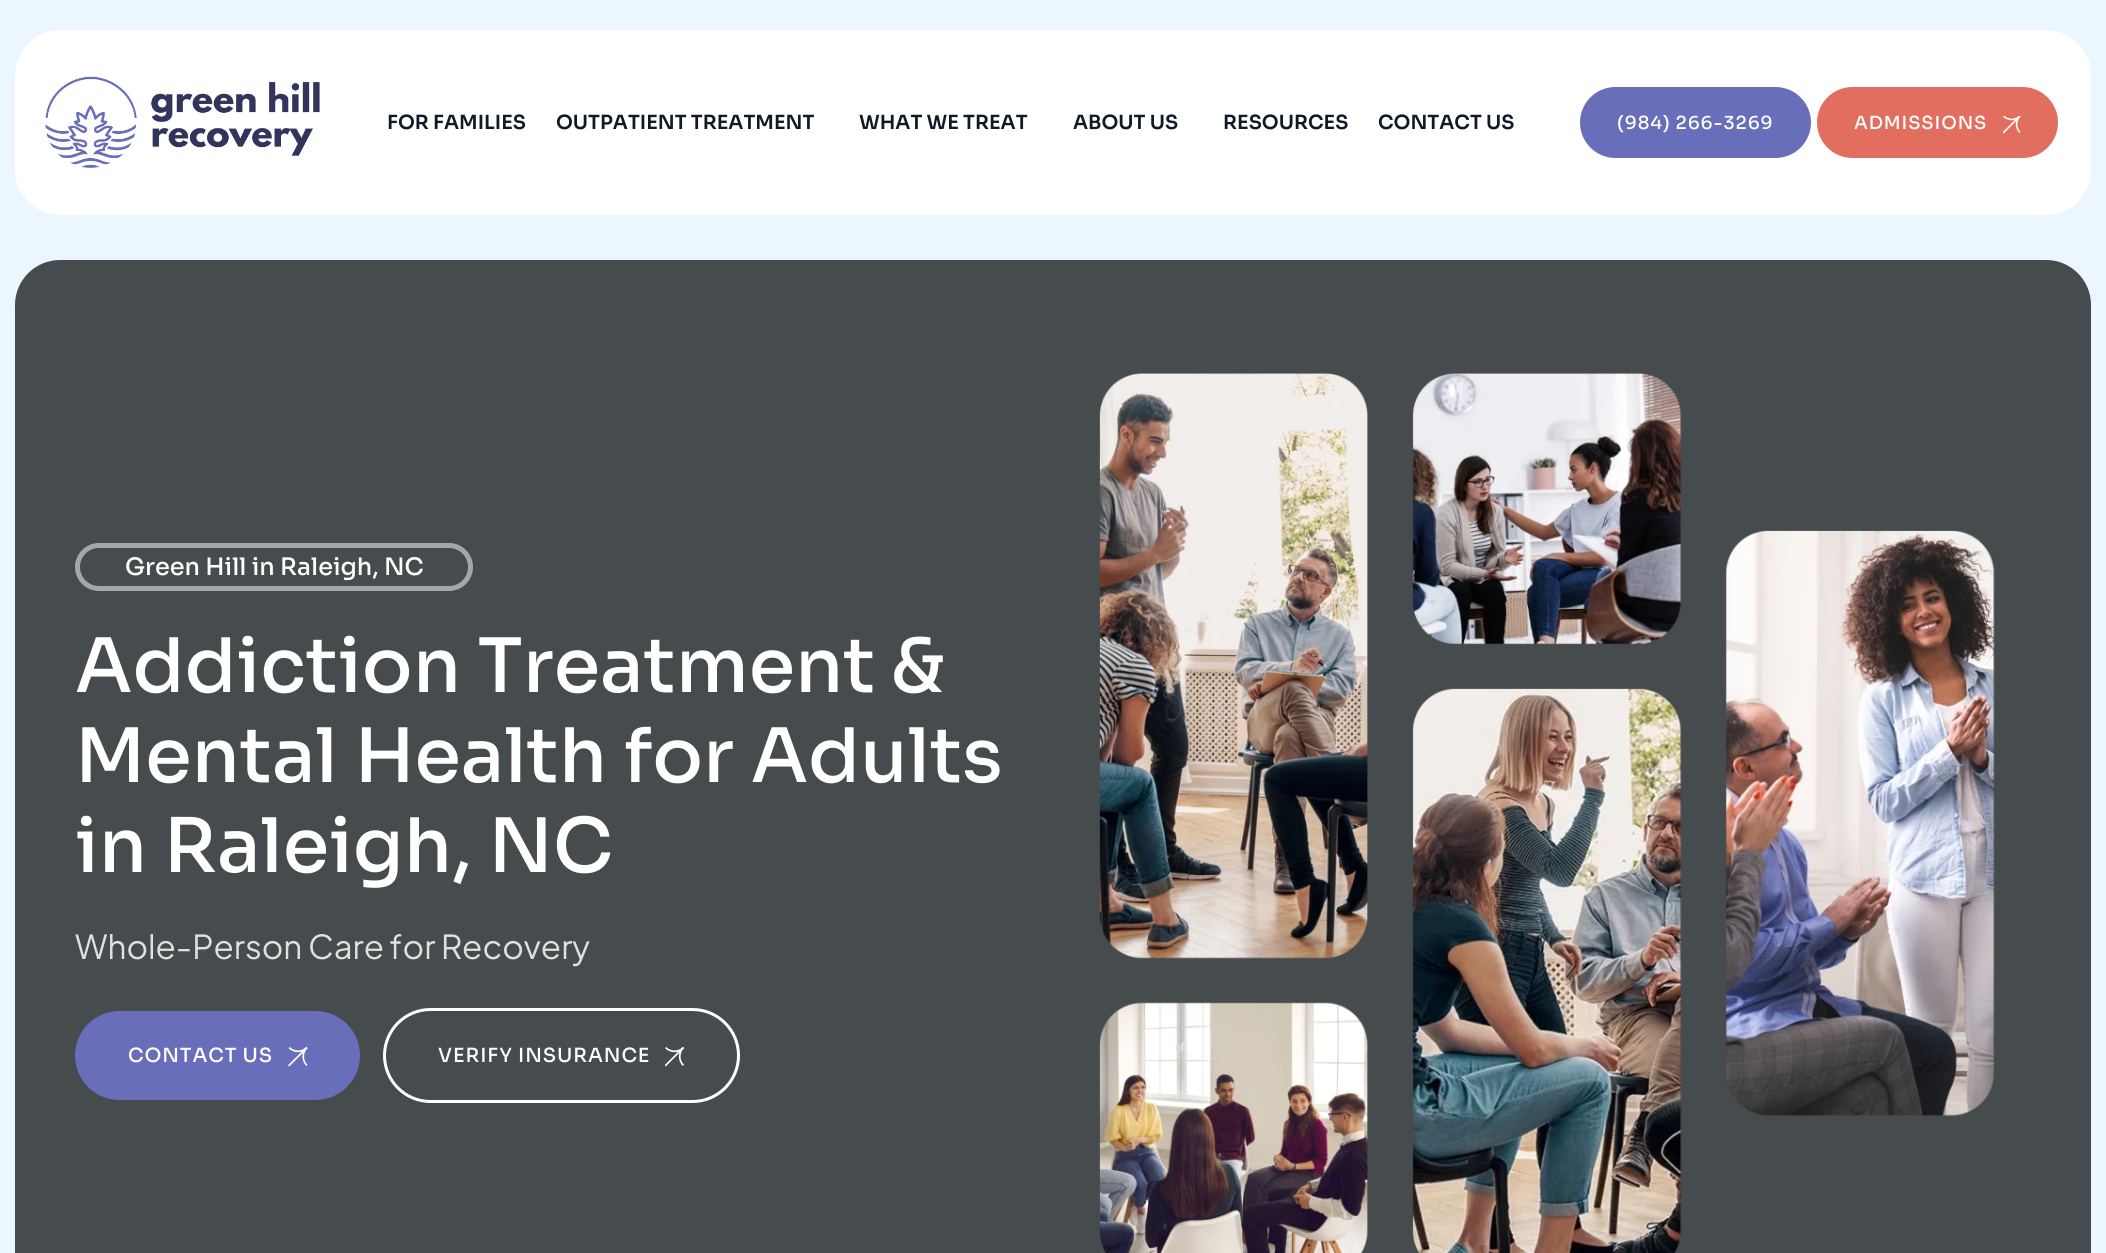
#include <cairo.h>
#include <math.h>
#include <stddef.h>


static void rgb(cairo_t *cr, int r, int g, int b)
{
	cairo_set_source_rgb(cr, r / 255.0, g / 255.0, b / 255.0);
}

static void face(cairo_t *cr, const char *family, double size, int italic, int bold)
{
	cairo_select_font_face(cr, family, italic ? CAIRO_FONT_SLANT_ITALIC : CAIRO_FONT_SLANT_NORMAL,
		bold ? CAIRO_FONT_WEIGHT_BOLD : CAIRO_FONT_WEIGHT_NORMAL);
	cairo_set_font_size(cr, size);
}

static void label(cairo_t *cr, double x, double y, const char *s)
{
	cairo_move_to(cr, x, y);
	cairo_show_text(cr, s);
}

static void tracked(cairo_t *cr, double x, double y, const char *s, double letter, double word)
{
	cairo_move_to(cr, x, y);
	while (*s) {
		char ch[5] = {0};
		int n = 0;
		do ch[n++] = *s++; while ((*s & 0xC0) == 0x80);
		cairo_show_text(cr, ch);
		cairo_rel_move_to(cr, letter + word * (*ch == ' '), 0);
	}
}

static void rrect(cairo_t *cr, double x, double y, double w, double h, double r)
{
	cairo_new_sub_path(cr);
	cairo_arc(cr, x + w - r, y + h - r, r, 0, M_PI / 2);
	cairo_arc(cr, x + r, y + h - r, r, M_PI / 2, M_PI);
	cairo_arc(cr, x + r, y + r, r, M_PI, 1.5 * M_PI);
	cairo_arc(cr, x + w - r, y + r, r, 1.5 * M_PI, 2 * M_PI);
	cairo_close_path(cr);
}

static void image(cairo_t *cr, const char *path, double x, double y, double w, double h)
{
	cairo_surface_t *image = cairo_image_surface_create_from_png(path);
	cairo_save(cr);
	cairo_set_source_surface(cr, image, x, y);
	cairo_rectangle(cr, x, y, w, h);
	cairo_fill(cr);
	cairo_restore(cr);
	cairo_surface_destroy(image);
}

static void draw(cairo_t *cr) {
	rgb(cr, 236, 246, 255);
	cairo_paint(cr);
	rgb(cr, 255, 255, 255);
	rrect(cr, 15, 30, 2076, 185, 45);
	cairo_fill(cr);
	image(cr, "image0.png", 45, 76, 275, 92);
	face(cr, "Sora SemiBold", 19.5, 0, 0);
	rgb(cr, 15, 26, 38);
	label(cr, 387, 129, "FOR FAMILIES");
	label(cr, 556, 129, "OUTPATIENT TREATMENT");
	label(cr, 859, 129, "WHAT WE TREAT");
	label(cr, 1073, 129, "ABOUT US");
	label(cr, 1223, 129, "RESOURCES");
	label(cr, 1378, 129, "CONTACT US");
	rgb(cr, 104, 110, 185);
	rrect(cr, 1580, 87, 231, 71, 35.5);
	cairo_fill(cr);
	face(cr, "Sora Medium", 18, 0, 0);
	rgb(cr, 255, 255, 255);
	tracked(cr, 1617, 129, "(984) 266-3269", 0.9, 0);
	rgb(cr, 225, 110, 95);
	rrect(cr, 1817, 87, 241, 71, 35.5);
	cairo_fill(cr);
	rgb(cr, 255, 255, 255);
	tracked(cr, 1854, 129, "ADMISSIONS", 0.9, 0);
	image(cr, "image1.png", 2003, 116, 18, 18);
	rgb(cr, 70, 75, 77);
	rrect(cr, 15, 260, 2076, 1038, 45);
	cairo_fill(cr);
	rrect(cr, 77.5, 545.5, 393, 43, 21.5);
	rgb(cr, 164, 167, 168);
	cairo_set_line_width(cr, 5);
	cairo_stroke(cr);
	face(cr, "Sora Medium", 24, 0, 0);
	rgb(cr, 255, 255, 255);
	label(cr, 125, 575, "Green Hill in Raleigh, NC");
	face(cr, "Sora Medium", 75, 0, 0);
	label(cr, 75, 692, "Addiction Treatment &");
	label(cr, 75, 782, "Mental Health for Adults");
	label(cr, 75, 872, "in Raleigh, NC");
	face(cr, "Plus Jakarta Sans", 33, 0, 0);
	rgb(cr, 224, 224, 224);
	label(cr, 75, 959, "Whole-Person Care for Recovery");
	rgb(cr, 104, 110, 185);
	rrect(cr, 75, 1011, 285, 89, 44.5);
	cairo_fill(cr);
	face(cr, "Sora Medium", 19.5, 0, 0);
	rgb(cr, 255, 255, 255);
	tracked(cr, 128, 1062, "CONTACT US", 0.9, 0);
	image(cr, "image2.png", 288, 1047, 20, 20);
	rrect(cr, 384.5, 1009.5, 354, 92, 46);
	cairo_set_line_width(cr, 3);
	cairo_stroke(cr);
	tracked(cr, 438, 1062, "VERIFY INSURANCE", 0.9, 0);
	image(cr, "image3.png", 665, 1047, 19, 20);
	image(cr, "image4.png", 1099, 373, 896, 880);
}

int main(void) {
	cairo_surface_t *surface = cairo_image_surface_create(CAIRO_FORMAT_RGB24, 2106, 1253);
	cairo_t *cr = cairo_create(surface);
	cairo_font_options_t *options = cairo_font_options_create();
	cairo_font_options_set_hint_metrics(options, CAIRO_HINT_METRICS_OFF);
	cairo_font_options_set_hint_style(options, CAIRO_HINT_STYLE_NONE);
	cairo_set_font_options(cr, options);
	cairo_set_miter_limit(cr, 4);
	draw(cr);
	cairo_surface_write_to_png(surface, "render.png");
	cairo_font_options_destroy(options);
	cairo_destroy(cr);
	cairo_surface_destroy(surface);
	return 0;
}
